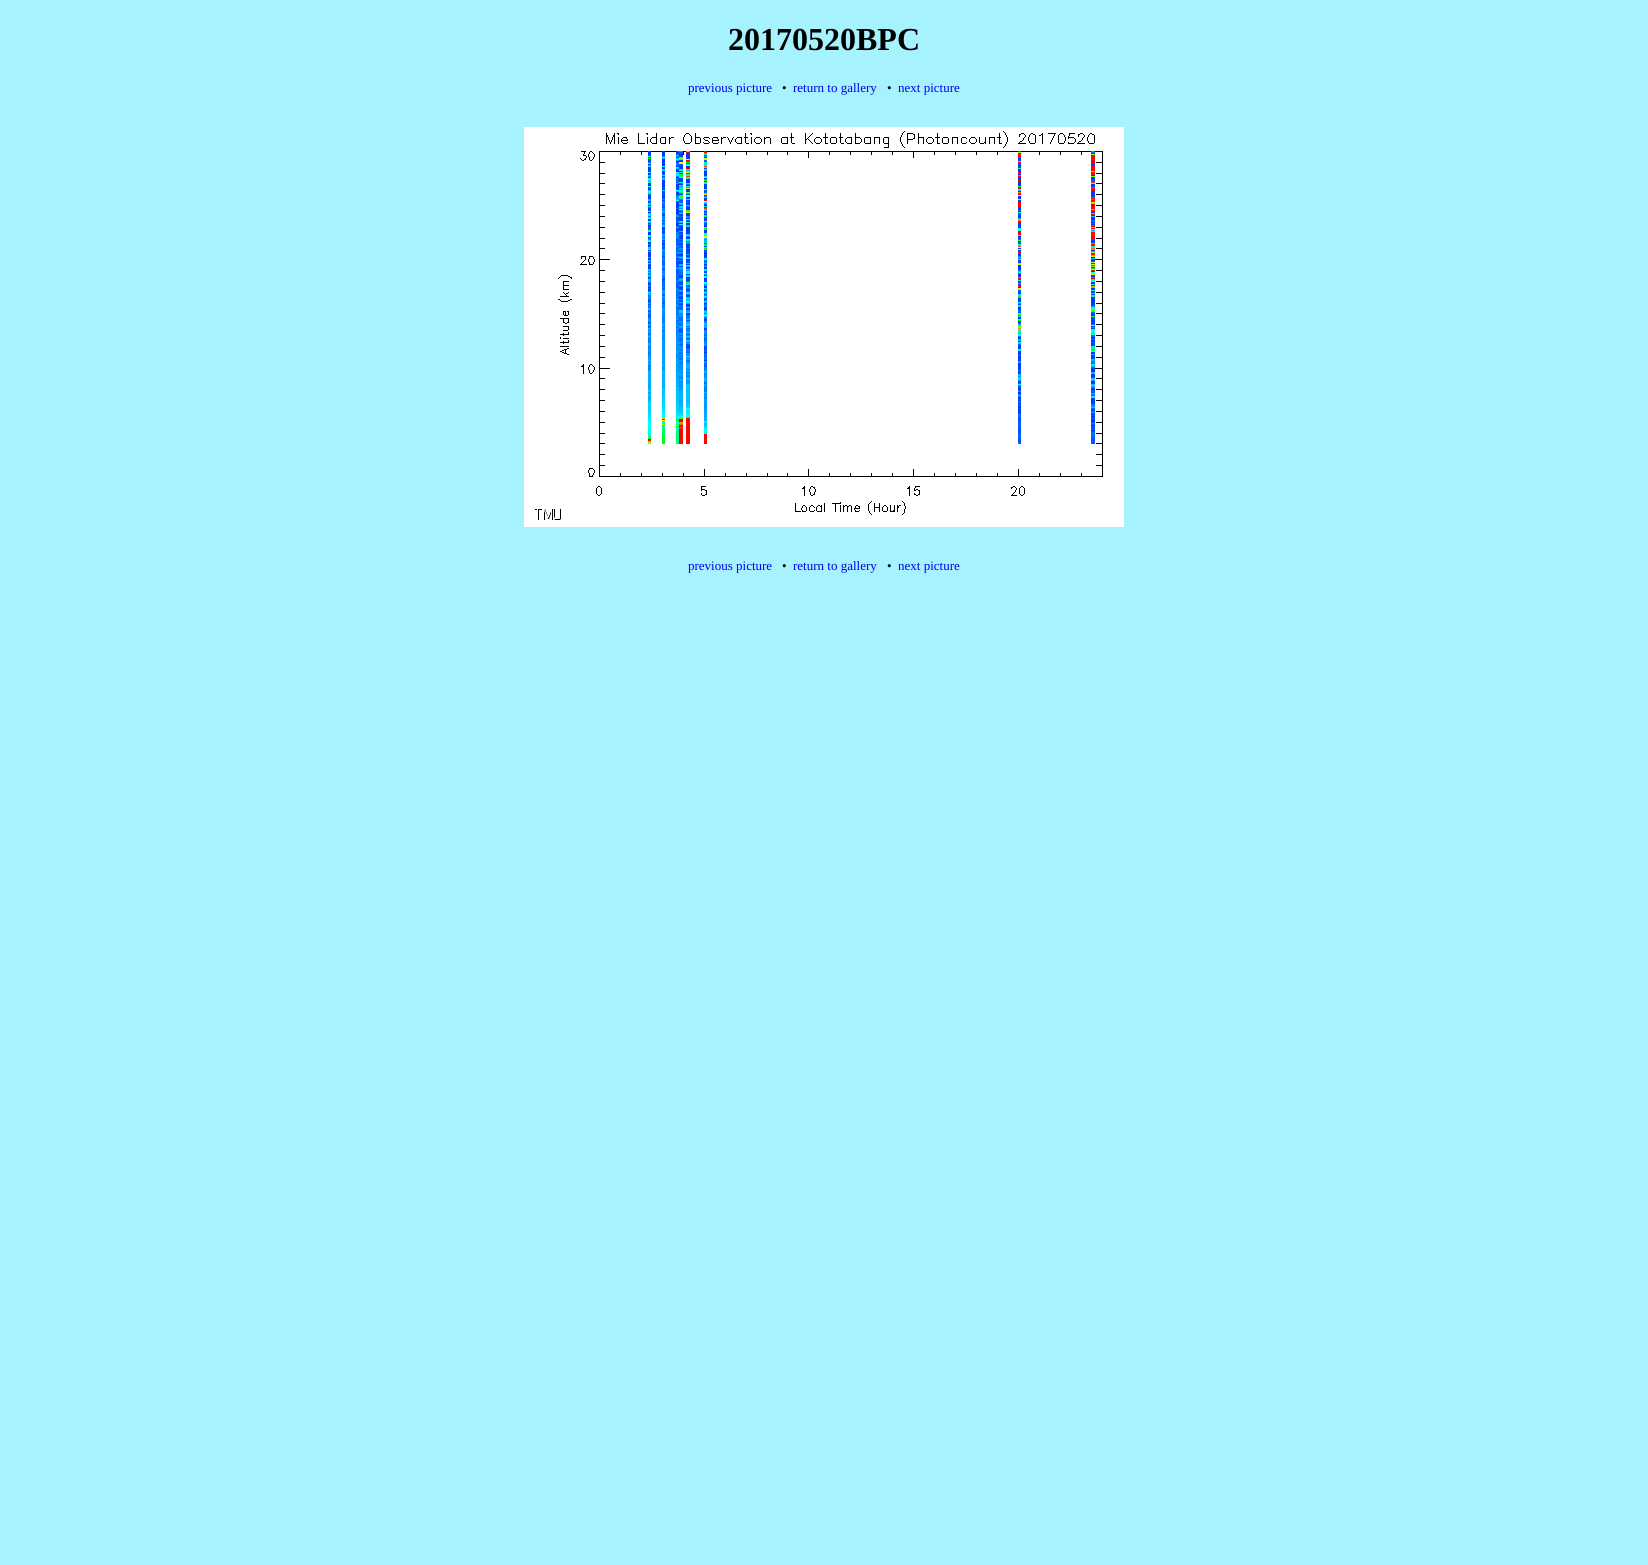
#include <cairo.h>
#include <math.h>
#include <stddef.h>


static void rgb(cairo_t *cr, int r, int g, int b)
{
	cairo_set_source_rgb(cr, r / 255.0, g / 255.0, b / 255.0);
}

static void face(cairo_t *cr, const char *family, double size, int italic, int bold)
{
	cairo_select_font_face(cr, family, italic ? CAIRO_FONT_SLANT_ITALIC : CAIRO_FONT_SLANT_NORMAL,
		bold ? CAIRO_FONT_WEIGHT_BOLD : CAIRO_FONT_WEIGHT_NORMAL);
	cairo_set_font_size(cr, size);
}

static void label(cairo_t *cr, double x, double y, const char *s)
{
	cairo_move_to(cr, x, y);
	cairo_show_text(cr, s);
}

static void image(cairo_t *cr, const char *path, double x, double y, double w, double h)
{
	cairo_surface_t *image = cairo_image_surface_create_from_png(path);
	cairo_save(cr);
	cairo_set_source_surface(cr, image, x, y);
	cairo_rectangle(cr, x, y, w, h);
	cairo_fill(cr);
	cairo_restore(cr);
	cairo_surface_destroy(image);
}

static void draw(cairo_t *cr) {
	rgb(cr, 166, 243, 255);
	cairo_paint(cr);
	face(cr, "Liberation Serif", 32, 0, 1);
	rgb(cr, 0, 0, 0);
	label(cr, 728, 50, "20170520BPC");
	face(cr, "Liberation Serif", 13, 0, 0);
	rgb(cr, 0, 0, 238);
	label(cr, 688, 92, "previous picture");
	rgb(cr, 0, 0, 0);
	label(cr, 782, 92, "•");
	rgb(cr, 0, 0, 238);
	label(cr, 793, 92, "return to gallery");
	rgb(cr, 0, 0, 0);
	label(cr, 887, 92, "•");
	rgb(cr, 0, 0, 238);
	label(cr, 898, 92, "next picture");
	image(cr, "image0.png", 524, 127, 600, 400);
	label(cr, 688, 570, "previous picture");
	rgb(cr, 0, 0, 0);
	label(cr, 782, 570, "•");
	rgb(cr, 0, 0, 238);
	label(cr, 793, 570, "return to gallery");
	rgb(cr, 0, 0, 0);
	label(cr, 887, 570, "•");
	rgb(cr, 0, 0, 238);
	label(cr, 898, 570, "next picture");
}

int main(void) {
	cairo_surface_t *surface = cairo_image_surface_create(CAIRO_FORMAT_RGB24, 1648, 1565);
	cairo_t *cr = cairo_create(surface);
	cairo_font_options_t *options = cairo_font_options_create();
	cairo_font_options_set_hint_metrics(options, CAIRO_HINT_METRICS_OFF);
	cairo_font_options_set_hint_style(options, CAIRO_HINT_STYLE_NONE);
	cairo_set_font_options(cr, options);
	cairo_set_miter_limit(cr, 4);
	draw(cr);
	cairo_surface_write_to_png(surface, "render.png");
	cairo_font_options_destroy(options);
	cairo_destroy(cr);
	cairo_surface_destroy(surface);
	return 0;
}
